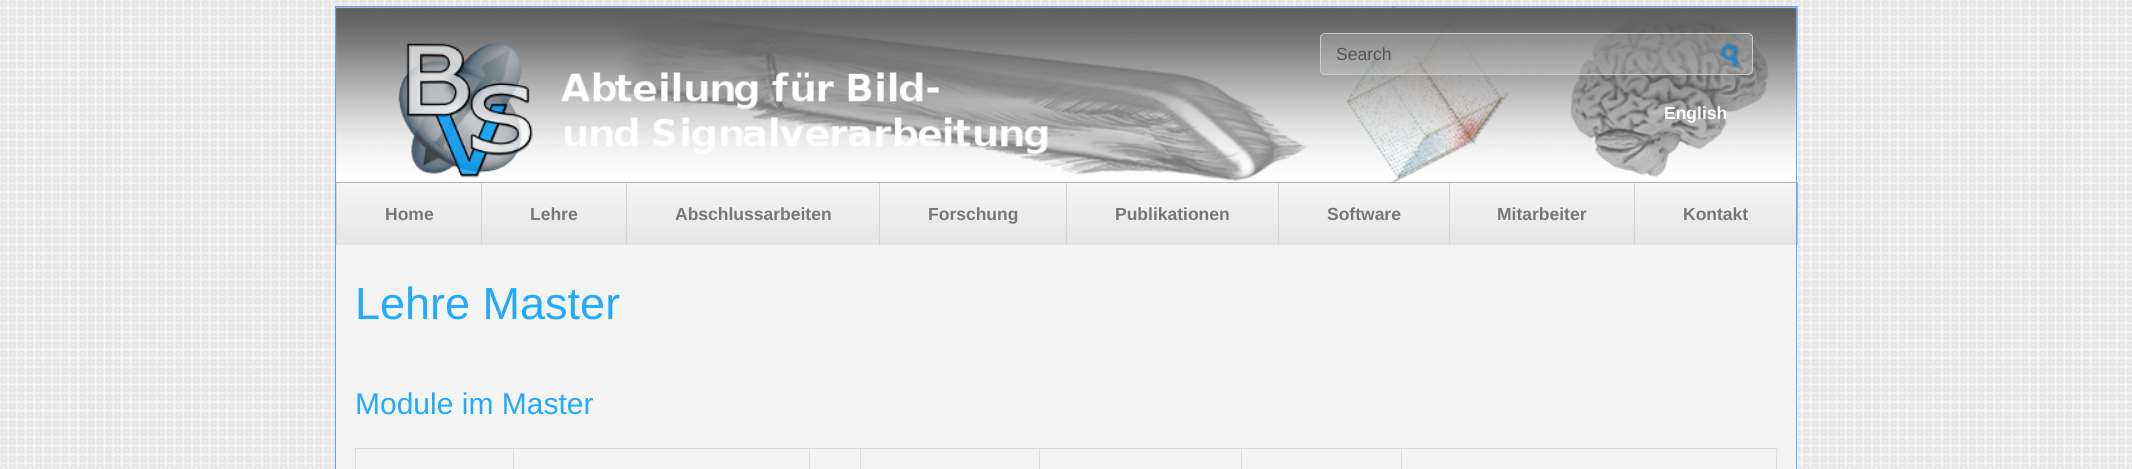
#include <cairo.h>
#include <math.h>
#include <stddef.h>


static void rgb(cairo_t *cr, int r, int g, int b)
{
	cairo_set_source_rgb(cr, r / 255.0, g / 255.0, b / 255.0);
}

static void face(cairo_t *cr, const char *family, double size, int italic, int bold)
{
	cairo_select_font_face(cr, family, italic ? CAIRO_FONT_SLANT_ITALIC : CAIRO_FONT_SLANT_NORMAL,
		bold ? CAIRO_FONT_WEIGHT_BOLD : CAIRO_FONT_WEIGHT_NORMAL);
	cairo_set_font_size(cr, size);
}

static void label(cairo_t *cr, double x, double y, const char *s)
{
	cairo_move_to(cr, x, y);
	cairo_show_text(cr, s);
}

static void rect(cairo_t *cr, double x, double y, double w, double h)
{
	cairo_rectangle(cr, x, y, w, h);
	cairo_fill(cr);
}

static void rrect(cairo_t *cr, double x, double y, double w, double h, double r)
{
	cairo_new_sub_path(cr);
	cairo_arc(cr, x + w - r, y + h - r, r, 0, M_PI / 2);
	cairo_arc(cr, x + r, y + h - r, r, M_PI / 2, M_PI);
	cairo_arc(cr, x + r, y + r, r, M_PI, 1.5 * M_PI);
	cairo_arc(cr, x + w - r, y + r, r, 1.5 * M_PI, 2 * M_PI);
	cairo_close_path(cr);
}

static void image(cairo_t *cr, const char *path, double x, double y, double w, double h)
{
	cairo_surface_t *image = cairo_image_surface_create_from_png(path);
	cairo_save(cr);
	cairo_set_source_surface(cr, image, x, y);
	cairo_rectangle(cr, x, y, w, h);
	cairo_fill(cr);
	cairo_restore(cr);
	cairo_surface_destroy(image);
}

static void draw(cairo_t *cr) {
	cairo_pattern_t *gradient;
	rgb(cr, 255, 255, 255);
	cairo_paint(cr);
	image(cr, "image0.png", 0, 0, 2132, 469);
	rgb(cr, 244, 244, 244);
	rect(cr, 1797, 7, 1, 238);
	image(cr, "image1.png", 336, 7, 1462, 238);
	rgb(cr, 105, 161, 254);
	rect(cr, 335, 6, 1463, 1);
	rect(cr, 1796, 6, 1, 239);
	rect(cr, 335, 6, 1, 463);
	image(cr, "image2.png", 398, 42, 650, 136);
	cairo_set_source_rgba(cr, 1, 1, 1, 0.2);
	rrect(cr, 1320, 33, 433, 42, 5);
	cairo_fill(cr);
	cairo_set_source_rgba(cr, 0, 0, 0, 0.07);
	cairo_new_path(cr);
	cairo_move_to(cr, 1325, 35);
	cairo_line_to(cr, 1748, 35);
	cairo_curve_to(cr, 1750, 35, 1751, 37, 1751, 39);
	cairo_curve_to(cr, 1751, 36, 1750, 34, 1747, 34);
	cairo_line_to(cr, 1325, 34);
	cairo_curve_to(cr, 1324, 34, 1322, 35, 1322, 36);
	cairo_line_to(cr, 1321, 39);
	cairo_curve_to(cr, 1321, 37, 1323, 35, 1325, 35);
	cairo_close_path(cr);
	cairo_fill(cr);
	rrect(cr, 1320.5, 33.5, 432, 41, 4.5);
	rgb(cr, 204, 204, 204);
	cairo_set_line_width(cr, 1);
	cairo_stroke(cr);
	face(cr, "Liberation Sans", 17.5, 0, 0);
	rgb(cr, 85, 85, 85);
	label(cr, 1336, 60, "Search");
	image(cr, "image3.png", 1720, 43, 21, 25);
	face(cr, "Liberation Sans", 17.5, 0, 1);
	rgb(cr, 255, 255, 255);
	label(cr, 1664, 119, "English");
	gradient = cairo_pattern_create_linear(409, 183, 409, 245);
	cairo_pattern_add_color_stop_rgba(gradient, 0, 0.961, 0.961, 0.961, 1);
	cairo_pattern_add_color_stop_rgba(gradient, 1, 0.898, 0.898, 0.898, 1);
	cairo_set_source(cr, gradient);
	cairo_pattern_destroy(gradient);
	rect(cr, 337, 183, 144, 62);
	rgb(cr, 213, 213, 213);
	rect(cr, 336, 183, 1, 62);
	rgb(cr, 119, 119, 119);
	label(cr, 385, 220, "Home");
	gradient = cairo_pattern_create_linear(554, 183, 554, 245);
	cairo_pattern_add_color_stop_rgba(gradient, 0, 0.961, 0.961, 0.961, 1);
	cairo_pattern_add_color_stop_rgba(gradient, 1, 0.898, 0.898, 0.898, 1);
	cairo_set_source(cr, gradient);
	cairo_pattern_destroy(gradient);
	rect(cr, 482, 183, 144, 62);
	rgb(cr, 213, 213, 213);
	rect(cr, 481, 183, 1, 62);
	rgb(cr, 119, 119, 119);
	label(cr, 530, 220, "Lehre");
	gradient = cairo_pattern_create_linear(753, 183, 753, 245);
	cairo_pattern_add_color_stop_rgba(gradient, 0, 0.961, 0.961, 0.961, 1);
	cairo_pattern_add_color_stop_rgba(gradient, 1, 0.898, 0.898, 0.898, 1);
	cairo_set_source(cr, gradient);
	cairo_pattern_destroy(gradient);
	rect(cr, 627, 183, 252, 62);
	rgb(cr, 213, 213, 213);
	rect(cr, 626, 183, 1, 62);
	rgb(cr, 119, 119, 119);
	label(cr, 675, 220, "Abschlussarbeiten");
	gradient = cairo_pattern_create_linear(973, 183, 973, 245);
	cairo_pattern_add_color_stop_rgba(gradient, 0, 0.961, 0.961, 0.961, 1);
	cairo_pattern_add_color_stop_rgba(gradient, 1, 0.898, 0.898, 0.898, 1);
	cairo_set_source(cr, gradient);
	cairo_pattern_destroy(gradient);
	rect(cr, 880, 183, 186, 62);
	rgb(cr, 213, 213, 213);
	rect(cr, 879, 183, 1, 62);
	rgb(cr, 119, 119, 119);
	label(cr, 928, 220, "Forschung");
	gradient = cairo_pattern_create_linear(1173, 183, 1173, 245);
	cairo_pattern_add_color_stop_rgba(gradient, 0, 0.961, 0.961, 0.961, 1);
	cairo_pattern_add_color_stop_rgba(gradient, 1, 0.898, 0.898, 0.898, 1);
	cairo_set_source(cr, gradient);
	cairo_pattern_destroy(gradient);
	rect(cr, 1067, 183, 211, 62);
	rgb(cr, 213, 213, 213);
	rect(cr, 1066, 183, 1, 62);
	rgb(cr, 119, 119, 119);
	label(cr, 1115, 220, "Publikationen");
	gradient = cairo_pattern_create_linear(1364, 183, 1364, 245);
	cairo_pattern_add_color_stop_rgba(gradient, 0, 0.961, 0.961, 0.961, 1);
	cairo_pattern_add_color_stop_rgba(gradient, 1, 0.898, 0.898, 0.898, 1);
	cairo_set_source(cr, gradient);
	cairo_pattern_destroy(gradient);
	rect(cr, 1279, 183, 170, 62);
	rgb(cr, 213, 213, 213);
	rect(cr, 1278, 183, 1, 62);
	rgb(cr, 119, 119, 119);
	label(cr, 1327, 220, "Software");
	gradient = cairo_pattern_create_linear(1542, 183, 1542, 245);
	cairo_pattern_add_color_stop_rgba(gradient, 0, 0.961, 0.961, 0.961, 1);
	cairo_pattern_add_color_stop_rgba(gradient, 1, 0.898, 0.898, 0.898, 1);
	cairo_set_source(cr, gradient);
	cairo_pattern_destroy(gradient);
	rect(cr, 1450, 183, 184, 62);
	rgb(cr, 213, 213, 213);
	rect(cr, 1449, 183, 1, 62);
	rgb(cr, 119, 119, 119);
	label(cr, 1497, 220, "Mitarbeiter");
	gradient = cairo_pattern_create_linear(1716, 183, 1716, 245);
	cairo_pattern_add_color_stop_rgba(gradient, 0, 0.961, 0.961, 0.961, 1);
	cairo_pattern_add_color_stop_rgba(gradient, 1, 0.898, 0.898, 0.898, 1);
	cairo_set_source(cr, gradient);
	cairo_pattern_destroy(gradient);
	rect(cr, 1635, 183, 161, 62);
	rgb(cr, 213, 213, 213);
	rect(cr, 1634, 183, 1, 62);
	rgb(cr, 119, 119, 119);
	label(cr, 1683, 220, "Kontakt");
	rgb(cr, 244, 244, 244);
	rect(cr, 336, 245, 1462, 224);
	rgb(cr, 105, 161, 254);
	rect(cr, 1796, 245, 1, 224);
	face(cr, "Liberation Sans", 45, 0, 0);
	rgb(cr, 34, 170, 255);
	label(cr, 355, 319, "Lehre Master");
	face(cr, "Liberation Sans", 30, 0, 0);
	label(cr, 355, 414, "Module im Master");
	rgb(cr, 221, 221, 221);
	rect(cr, 355, 448, 1423, 1);
	rect(cr, 1776, 448, 1, 21);
	rect(cr, 355, 448, 1, 21);
	rect(cr, 513, 448, 1, 21);
	rect(cr, 809, 448, 1, 21);
	rect(cr, 860, 448, 1, 21);
	rect(cr, 1039, 448, 1, 21);
	rect(cr, 1241, 448, 1, 21);
	rect(cr, 1401, 448, 1, 21);
}

int main(void) {
	cairo_surface_t *surface = cairo_image_surface_create(CAIRO_FORMAT_RGB24, 2132, 469);
	cairo_t *cr = cairo_create(surface);
	cairo_font_options_t *options = cairo_font_options_create();
	cairo_font_options_set_hint_metrics(options, CAIRO_HINT_METRICS_OFF);
	cairo_font_options_set_hint_style(options, CAIRO_HINT_STYLE_NONE);
	cairo_set_font_options(cr, options);
	cairo_set_miter_limit(cr, 4);
	draw(cr);
	cairo_surface_write_to_png(surface, "render.png");
	cairo_font_options_destroy(options);
	cairo_destroy(cr);
	cairo_surface_destroy(surface);
	return 0;
}
